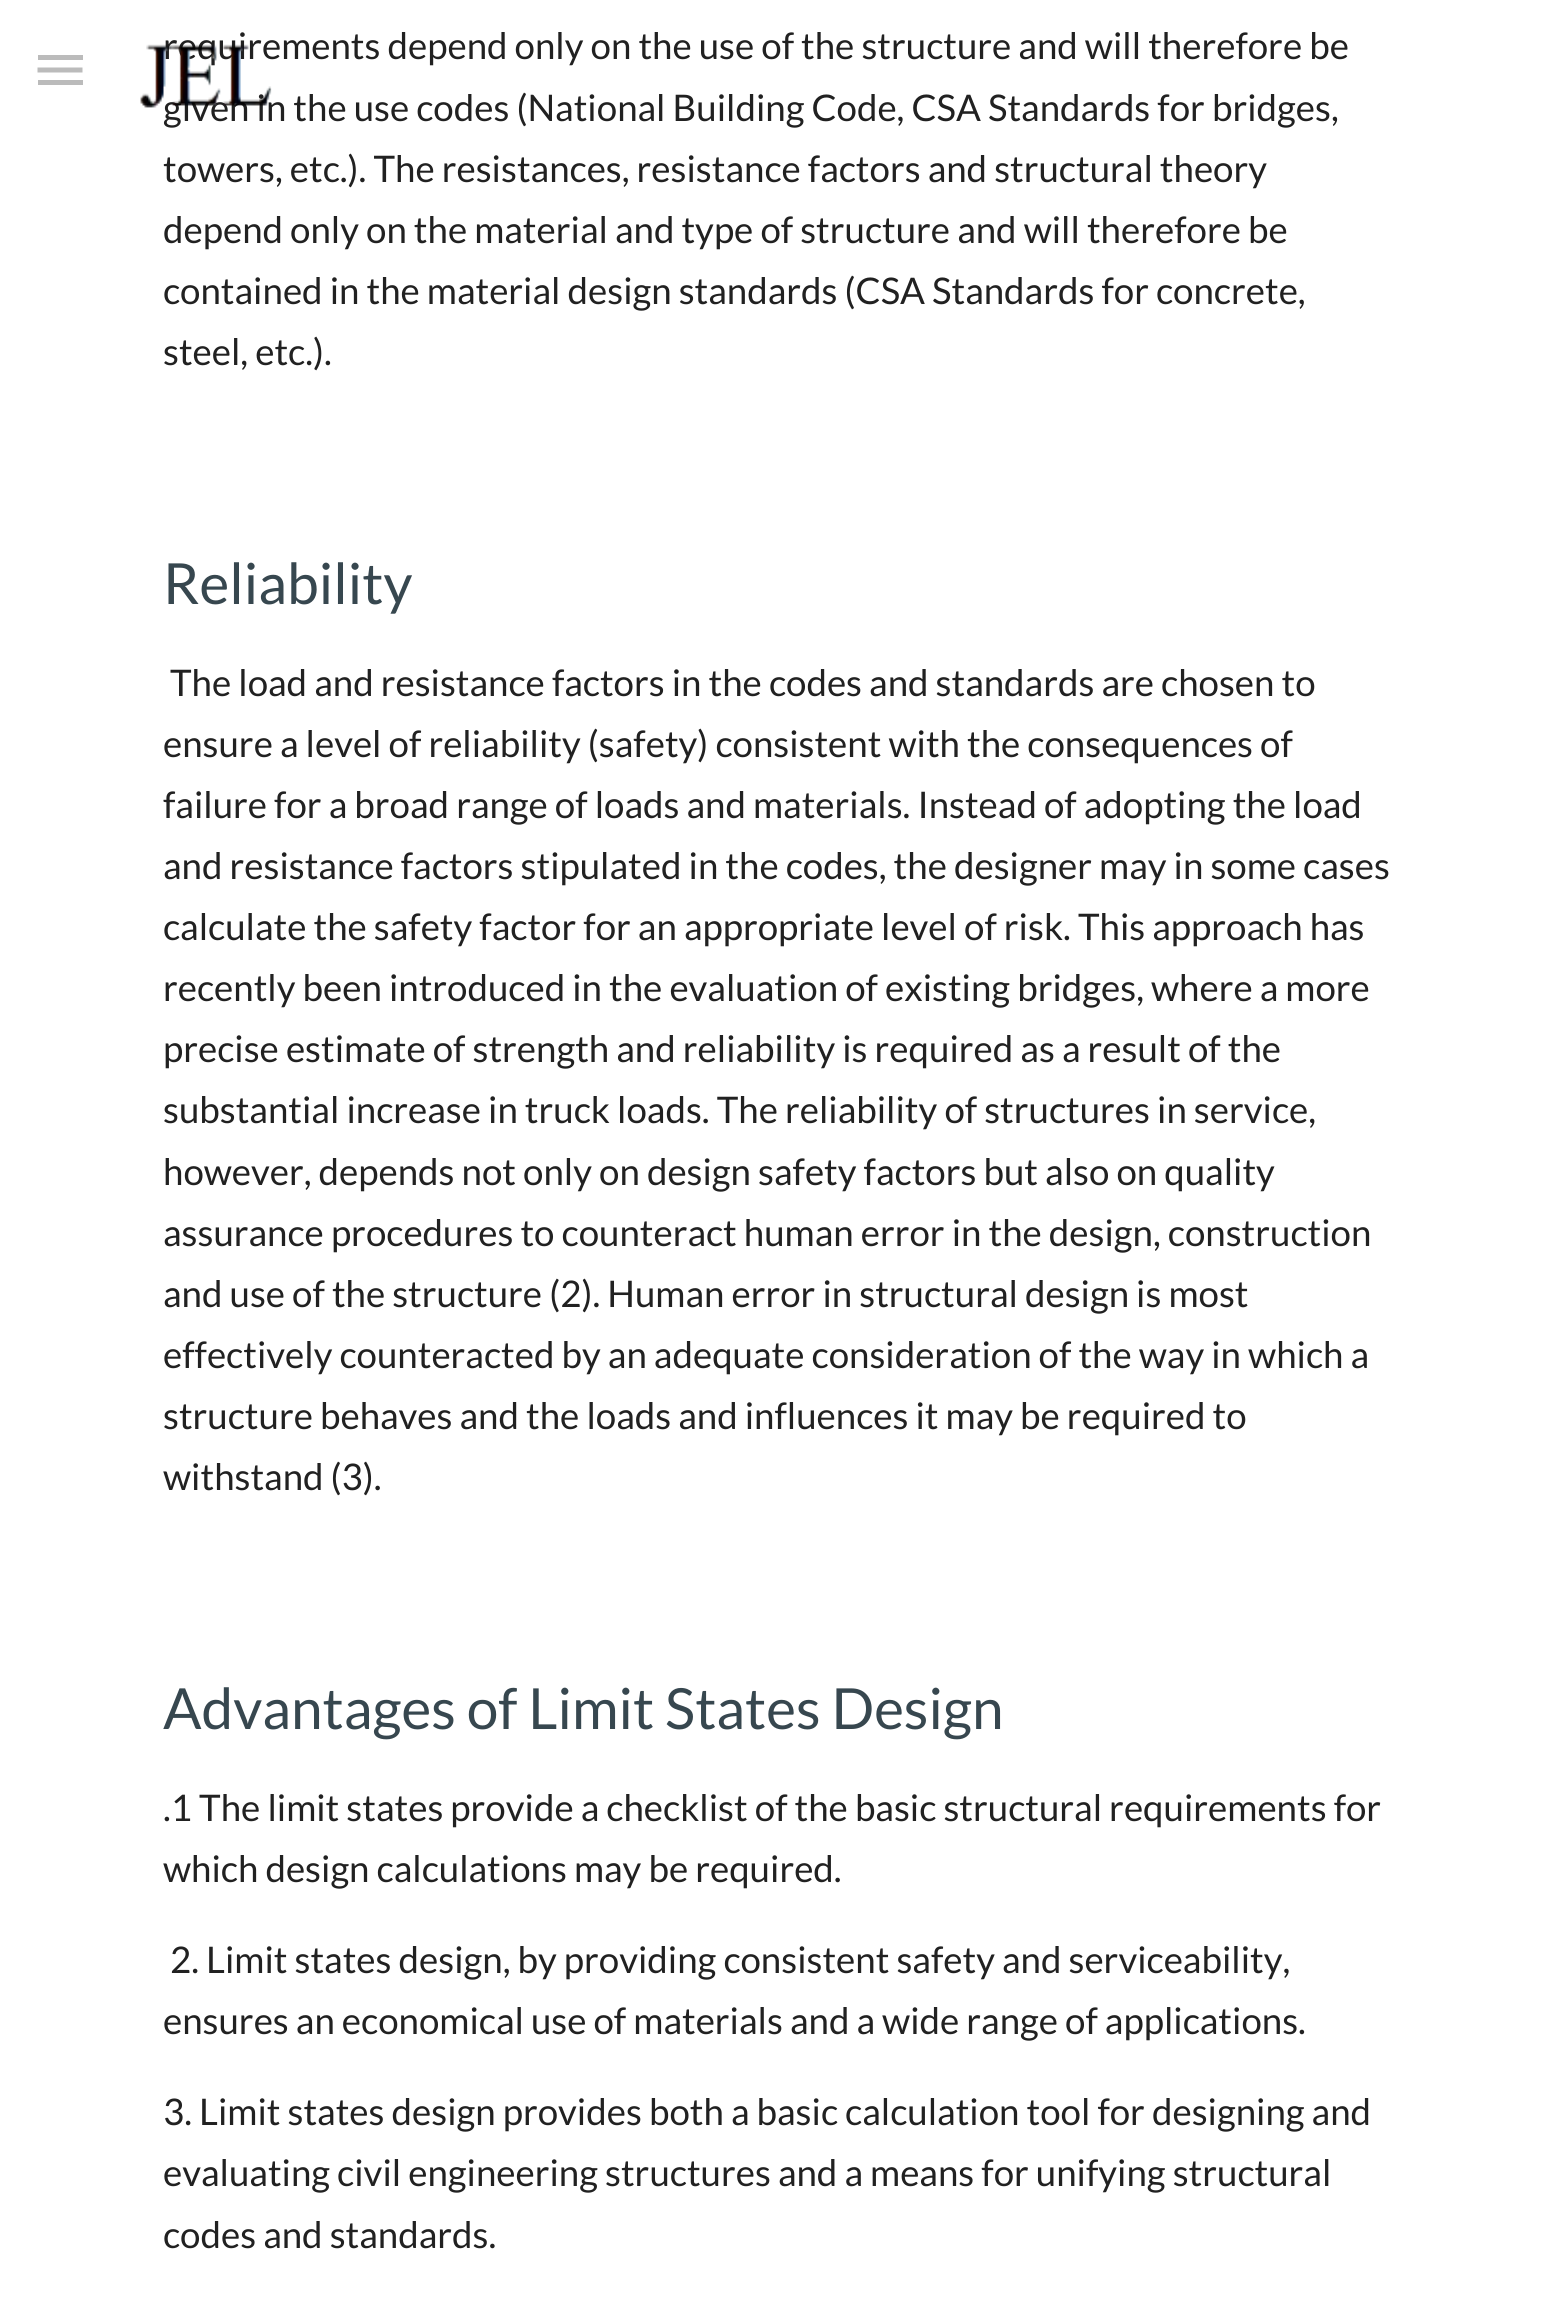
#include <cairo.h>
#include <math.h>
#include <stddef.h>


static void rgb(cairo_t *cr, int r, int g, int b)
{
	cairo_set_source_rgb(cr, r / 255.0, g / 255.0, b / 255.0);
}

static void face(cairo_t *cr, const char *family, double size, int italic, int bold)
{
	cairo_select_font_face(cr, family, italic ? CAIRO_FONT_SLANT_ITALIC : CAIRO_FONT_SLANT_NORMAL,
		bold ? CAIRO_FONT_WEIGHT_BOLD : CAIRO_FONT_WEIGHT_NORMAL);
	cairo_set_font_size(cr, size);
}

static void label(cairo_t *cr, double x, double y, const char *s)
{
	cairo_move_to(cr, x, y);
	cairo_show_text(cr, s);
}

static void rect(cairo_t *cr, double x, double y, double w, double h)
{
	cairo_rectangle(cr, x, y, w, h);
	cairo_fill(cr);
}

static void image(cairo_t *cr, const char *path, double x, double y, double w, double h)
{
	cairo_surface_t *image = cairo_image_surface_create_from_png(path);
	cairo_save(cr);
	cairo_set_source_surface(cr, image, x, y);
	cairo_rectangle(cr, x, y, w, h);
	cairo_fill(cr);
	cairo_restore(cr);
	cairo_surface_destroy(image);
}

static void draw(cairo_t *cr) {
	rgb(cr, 255, 255, 255);
	cairo_paint(cr);
	rgb(cr, 187, 187, 187);
	rect(cr, 38, 55, 45, 5);
	cairo_new_path(cr);
	cairo_move_to(cr, 37.5, 70);
	cairo_line_to(cr, 82.5, 70);
	cairo_set_line_width(cr, 5);
	cairo_stroke(cr);
	rect(cr, 38, 80, 45, 5);
	face(cr, "Lato", 36.65, 0, 0);
	rgb(cr, 33, 33, 33);
	label(cr, 163, 59, "requirements depend only on the use of the structure and will therefore be");
	label(cr, 163, 121, "given in the use codes (National Building Code, CSA Standards for bridges,");
	image(cr, "image0.png", 140, 44, 132, 64);
	label(cr, 163, 182, "towers, etc.). The resistances, resistance factors and structural theory");
	label(cr, 163, 243, "depend only on the material and type of structure and will therefore be");
	label(cr, 163, 304, "contained in the material design standards (CSA Standards for concrete,");
	label(cr, 163, 365, "steel, etc.).");
	face(cr, "Lato", 56.7, 0, 0);
	rgb(cr, 55, 71, 79);
	label(cr, 163, 604, "Reliability");
	face(cr, "Lato", 36.65, 0, 0);
	rgb(cr, 33, 33, 33);
	label(cr, 170, 696, "The load and resistance factors in the codes and standards are chosen to");
	label(cr, 163, 757, "ensure a level of reliability (safety) consistent with the consequences of");
	label(cr, 163, 818, "failure for a broad range of loads and materials. Instead of adopting the load");
	label(cr, 163, 879, "and resistance factors stipulated in the codes, the designer may in some cases");
	label(cr, 163, 940, "calculate the safety factor for an appropriate level of risk. This approach has");
	label(cr, 163, 1001, "recently been introduced in the evaluation of existing bridges, where a more");
	label(cr, 163, 1062, "precise estimate of strength and reliability is required as a result of the");
	label(cr, 163, 1123, "substantial increase in truck loads. The reliability of structures in service,");
	label(cr, 163, 1185, "however, depends not only on design safety factors but also on quality");
	label(cr, 163, 1246, "assurance procedures to counteract human error in the design, construction");
	label(cr, 163, 1307, "and use of the structure (2). Human error in structural design is most");
	label(cr, 163, 1368, "effectively counteracted by an adequate consideration of the way in which a");
	label(cr, 163, 1429, "structure behaves and the loads and influences it may be required to");
	label(cr, 163, 1490, "withstand (3).");
	face(cr, "Lato", 56.7, 0, 0);
	rgb(cr, 55, 71, 79);
	label(cr, 163, 1729, "Advantages of Limit States Design");
	face(cr, "Lato", 36.65, 0, 0);
	rgb(cr, 33, 33, 33);
	label(cr, 163, 1821, ".1 The limit states provide a checklist of the basic structural requirements for");
	label(cr, 163, 1882, "which design calculations may be required.");
	label(cr, 170, 1973, "2. Limit states design, by providing consistent safety and serviceability,");
	label(cr, 163, 2034, "ensures an economical use of materials and a wide range of applications.");
	label(cr, 163, 2125, "3. Limit states design provides both a basic calculation tool for designing and");
	label(cr, 163, 2186, "evaluating civil engineering structures and a means for unifying structural");
	label(cr, 163, 2248, "codes and standards.");
}

int main(void) {
	cairo_surface_t *surface = cairo_image_surface_create(CAIRO_FORMAT_RGB24, 1555, 2305);
	cairo_t *cr = cairo_create(surface);
	cairo_font_options_t *options = cairo_font_options_create();
	cairo_font_options_set_hint_metrics(options, CAIRO_HINT_METRICS_OFF);
	cairo_font_options_set_hint_style(options, CAIRO_HINT_STYLE_NONE);
	cairo_set_font_options(cr, options);
	cairo_set_miter_limit(cr, 4);
	draw(cr);
	cairo_surface_write_to_png(surface, "render.png");
	cairo_font_options_destroy(options);
	cairo_destroy(cr);
	cairo_surface_destroy(surface);
	return 0;
}
